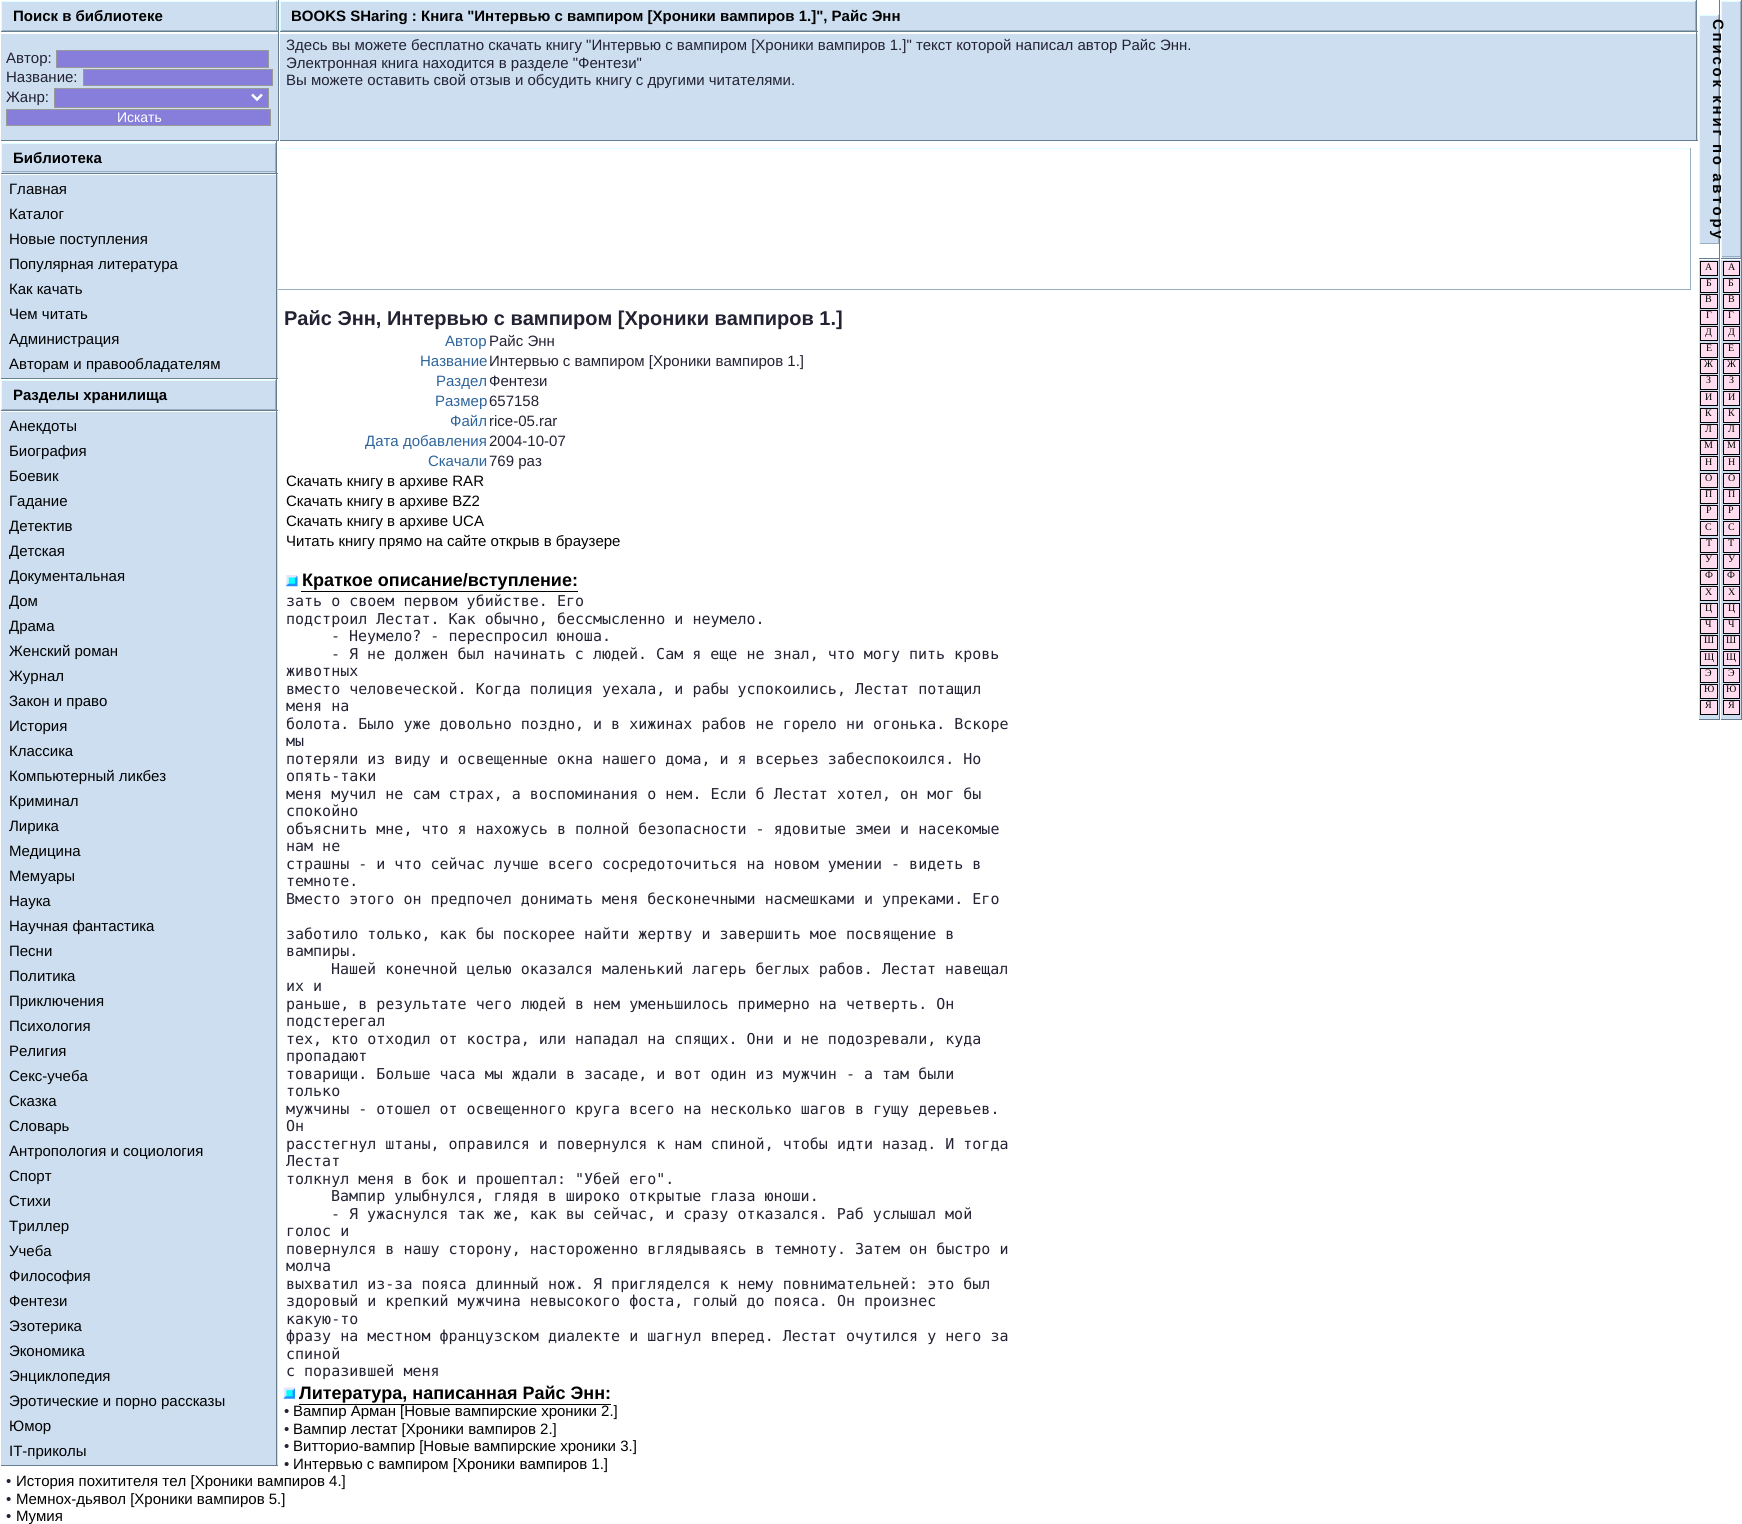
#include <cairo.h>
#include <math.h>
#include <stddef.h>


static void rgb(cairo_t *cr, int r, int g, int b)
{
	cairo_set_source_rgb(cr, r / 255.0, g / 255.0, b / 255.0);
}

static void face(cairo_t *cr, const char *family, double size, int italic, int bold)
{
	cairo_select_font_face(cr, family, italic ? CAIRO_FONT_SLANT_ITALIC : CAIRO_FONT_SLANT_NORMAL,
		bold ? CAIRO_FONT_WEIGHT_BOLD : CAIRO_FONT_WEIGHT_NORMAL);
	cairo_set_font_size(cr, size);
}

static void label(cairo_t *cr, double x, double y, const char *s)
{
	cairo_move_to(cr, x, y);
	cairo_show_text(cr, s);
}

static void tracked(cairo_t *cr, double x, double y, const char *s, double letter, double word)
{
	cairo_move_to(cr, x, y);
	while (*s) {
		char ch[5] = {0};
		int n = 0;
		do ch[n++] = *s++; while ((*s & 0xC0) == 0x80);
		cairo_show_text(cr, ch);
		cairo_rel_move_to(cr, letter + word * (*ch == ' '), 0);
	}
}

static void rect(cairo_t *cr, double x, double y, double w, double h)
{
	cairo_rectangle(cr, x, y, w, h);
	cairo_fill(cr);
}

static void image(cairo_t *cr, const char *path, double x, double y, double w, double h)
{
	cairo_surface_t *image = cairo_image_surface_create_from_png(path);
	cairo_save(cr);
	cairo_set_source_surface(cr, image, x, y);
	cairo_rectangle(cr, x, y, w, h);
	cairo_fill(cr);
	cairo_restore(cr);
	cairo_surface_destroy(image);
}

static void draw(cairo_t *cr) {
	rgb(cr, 255, 255, 255);
	cairo_paint(cr);
	rgb(cr, 102, 126, 144);
	rect(cr, 278, 0, 1, 141);
	rect(cr, 0, 31, 279, 1);
	rgb(cr, 255, 255, 255);
	rect(cr, 0, 31, 1, 2);
	rgb(cr, 204, 222, 240);
	rect(cr, 2, 2, 276, 28);
	rgb(cr, 221, 255, 255);
	rect(cr, 1, 1, 277, 1);
	rgb(cr, 153, 174, 192);
	rect(cr, 276, 1, 1, 30);
	rect(cr, 1, 30, 277, 1);
	rgb(cr, 221, 255, 255);
	rect(cr, 1, 1, 1, 30);
	face(cr, "Liberation Sans", 15, 0, 1);
	rgb(cr, 0, 0, 0);
	label(cr, 13, 21, "Поиск в библиотеке");
	rgb(cr, 102, 126, 144);
	rect(cr, 1696, 0, 1, 33);
	rect(cr, 279, 31, 1419, 1);
	rgb(cr, 255, 255, 255);
	rect(cr, 279, 31, 1, 2);
	rgb(cr, 204, 222, 240);
	rect(cr, 281, 2, 1414, 28);
	rgb(cr, 221, 255, 255);
	rect(cr, 280, 1, 1416, 1);
	rgb(cr, 153, 174, 192);
	rect(cr, 1695, 1, 1, 30);
	rect(cr, 280, 30, 1416, 1);
	rgb(cr, 221, 255, 255);
	rect(cr, 280, 1, 1, 30);
	rgb(cr, 0, 0, 0);
	label(cr, 291, 21, "BOOKS SHaring : Книга \"Интервью с вампиром [Хроники вампиров 1.]\", Райс Энн");
	rgb(cr, 204, 222, 240);
	rect(cr, 1, 34, 277, 106);
	rgb(cr, 102, 126, 144);
	rect(cr, 0, 140, 279, 1);
	rgb(cr, 255, 255, 255);
	rect(cr, 0, 140, 1, 1);
	face(cr, "Liberation Sans", 15, 0, 0);
	rgb(cr, 34, 34, 51);
	label(cr, 6, 63, "Автор:");
	rgb(cr, 135, 125, 218);
	cairo_rectangle(cr, 56.5, 50.5, 212, 17);
	cairo_fill_preserve(cr);
	rgb(cr, 153, 153, 153);
	cairo_set_line_width(cr, 1);
	cairo_stroke(cr);
	rgb(cr, 34, 34, 51);
	label(cr, 6, 82, "Название:");
	rgb(cr, 135, 125, 218);
	cairo_rectangle(cr, 83.5, 69.5, 189, 16);
	cairo_fill_preserve(cr);
	rgb(cr, 153, 153, 153);
	cairo_stroke(cr);
	rgb(cr, 34, 34, 51);
	label(cr, 6, 102, "Жанр:");
	rgb(cr, 135, 125, 218);
	cairo_rectangle(cr, 54.5, 88.5, 214, 19);
	cairo_fill_preserve(cr);
	rgb(cr, 153, 153, 153);
	cairo_stroke(cr);
	cairo_new_path(cr);
	cairo_move_to(cr, 252, 94.5);
	cairo_line_to(cr, 257, 99.5);
	cairo_line_to(cr, 262, 94.5);
	rgb(cr, 255, 255, 255);
	cairo_set_line_width(cr, 2.5);
	cairo_stroke(cr);
	rgb(cr, 135, 125, 218);
	cairo_rectangle(cr, 6.5, 109.5, 264, 16);
	cairo_fill_preserve(cr);
	rgb(cr, 153, 153, 153);
	cairo_set_line_width(cr, 1);
	cairo_stroke(cr);
	face(cr, "Liberation Sans", 14, 0, 0);
	rgb(cr, 255, 255, 255);
	label(cr, 117, 122, "Искать");
	rgb(cr, 204, 222, 240);
	rect(cr, 280, 34, 1418, 106);
	rgb(cr, 102, 126, 144);
	rect(cr, 1696, 33, 1, 108);
	rect(cr, 279, 140, 1419, 1);
	rgb(cr, 255, 255, 255);
	rect(cr, 279, 140, 1, 1);
	face(cr, "Liberation Sans", 15, 0, 0);
	rgb(cr, 34, 34, 51);
	label(cr, 286, 50, "Здесь вы можете бесплатно скачать книгу \"Интервью с вампиром [Хроники вампиров 1.]\" текст которой написал автор Райс Энн.");
	label(cr, 286, 68, "Электронная книга находится в разделе \"Фентези\"");
	label(cr, 286, 85, "Вы можете оставить свой отзыв и обсудить книгу с другими читателями.");
	rgb(cr, 102, 126, 144);
	rect(cr, 1719, 0, 1, 720);
	rect(cr, 1698, 258, 22, 1);
	rgb(cr, 255, 255, 255);
	rect(cr, 1698, 258, 1, 1);
	rgb(cr, 204, 222, 240);
	rect(cr, 1700, 16, 18, 227);
	rgb(cr, 221, 255, 255);
	rect(cr, 1699, 15, 20, 1);
	rgb(cr, 153, 174, 192);
	rect(cr, 1718, 15, 1, 229);
	rect(cr, 1699, 243, 20, 1);
	rgb(cr, 221, 255, 255);
	rect(cr, 1699, 15, 1, 229);
	rgb(cr, 204, 222, 240);
	rect(cr, 1722, 2, 18, 256);
	rgb(cr, 221, 255, 255);
	rect(cr, 1721, 1, 20, 1);
	rgb(cr, 153, 174, 192);
	rect(cr, 1740, 1, 1, 257);
	rect(cr, 1721, 256, 20, 1);
	rgb(cr, 221, 255, 255);
	rect(cr, 1721, 1, 1, 257);
	face(cr, "Liberation Sans", 15, 0, 1);
	rgb(cr, 0, 0, 0);
	cairo_save(cr);
	cairo_translate(cr, 1713, 19);
	cairo_rotate(cr, 90 * M_PI / 180);
	tracked(cr, 0, 0, "С п и с о к   к н и г   п о   а в т о р у", 0, -1.4);
	cairo_restore(cr);
	rgb(cr, 102, 126, 144);
	rect(cr, 1741, 0, 1, 720);
	rect(cr, 1720, 258, 22, 1);
	rgb(cr, 255, 255, 255);
	rect(cr, 1720, 258, 1, 1);
	rgb(cr, 204, 222, 240);
	rect(cr, 1699, 260, 20, 459);
	rgb(cr, 102, 126, 144);
	rect(cr, 1698, 719, 44, 1);
	rgb(cr, 255, 255, 255);
	rect(cr, 1698, 719, 1, 1);
	rgb(cr, 255, 221, 238);
	cairo_rectangle(cr, 1700.5, 261.5, 17, 14);
	cairo_fill_preserve(cr);
	rgb(cr, 0, 0, 0);
	cairo_stroke(cr);
	face(cr, "Liberation Serif", 10, 0, 0);
	label(cr, 1705, 270, "А");
	rgb(cr, 255, 221, 238);
	cairo_rectangle(cr, 1700.5, 278.5, 17, 14);
	cairo_fill_preserve(cr);
	rgb(cr, 0, 0, 0);
	cairo_stroke(cr);
	label(cr, 1706, 286, "Б");
	rgb(cr, 255, 221, 238);
	cairo_rectangle(cr, 1700.5, 294.5, 17, 14);
	cairo_fill_preserve(cr);
	rgb(cr, 0, 0, 0);
	cairo_stroke(cr);
	label(cr, 1705, 302, "В");
	rgb(cr, 255, 221, 238);
	cairo_rectangle(cr, 1700.5, 310.5, 17, 14);
	cairo_fill_preserve(cr);
	rgb(cr, 0, 0, 0);
	cairo_stroke(cr);
	label(cr, 1706, 318, "Г");
	rgb(cr, 255, 221, 238);
	cairo_rectangle(cr, 1700.5, 326.5, 17, 14);
	cairo_fill_preserve(cr);
	rgb(cr, 0, 0, 0);
	cairo_stroke(cr);
	label(cr, 1705, 335, "Д");
	rgb(cr, 255, 221, 238);
	cairo_rectangle(cr, 1700.5, 343.5, 17, 14);
	cairo_fill_preserve(cr);
	rgb(cr, 0, 0, 0);
	cairo_stroke(cr);
	label(cr, 1706, 351, "Е");
	rgb(cr, 255, 221, 238);
	cairo_rectangle(cr, 1700.5, 359.5, 17, 14);
	cairo_fill_preserve(cr);
	rgb(cr, 0, 0, 0);
	cairo_stroke(cr);
	label(cr, 1704, 367, "Ж");
	rgb(cr, 255, 221, 238);
	cairo_rectangle(cr, 1700.5, 375.5, 17, 14);
	cairo_fill_preserve(cr);
	rgb(cr, 0, 0, 0);
	cairo_stroke(cr);
	label(cr, 1706, 383, "З");
	rgb(cr, 255, 221, 238);
	cairo_rectangle(cr, 1700.5, 391.5, 17, 14);
	cairo_fill_preserve(cr);
	rgb(cr, 0, 0, 0);
	cairo_stroke(cr);
	label(cr, 1705, 400, "И");
	rgb(cr, 255, 221, 238);
	cairo_rectangle(cr, 1700.5, 408.5, 17, 14);
	cairo_fill_preserve(cr);
	rgb(cr, 0, 0, 0);
	cairo_stroke(cr);
	label(cr, 1705, 416, "К");
	rgb(cr, 255, 221, 238);
	cairo_rectangle(cr, 1700.5, 424.5, 17, 14);
	cairo_fill_preserve(cr);
	rgb(cr, 0, 0, 0);
	cairo_stroke(cr);
	label(cr, 1705, 432, "Л");
	rgb(cr, 255, 221, 238);
	cairo_rectangle(cr, 1700.5, 440.5, 17, 14);
	cairo_fill_preserve(cr);
	rgb(cr, 0, 0, 0);
	cairo_stroke(cr);
	label(cr, 1704, 448, "М");
	rgb(cr, 255, 221, 238);
	cairo_rectangle(cr, 1700.5, 456.5, 17, 14);
	cairo_fill_preserve(cr);
	rgb(cr, 0, 0, 0);
	cairo_stroke(cr);
	label(cr, 1705, 465, "Н");
	rgb(cr, 255, 221, 238);
	cairo_rectangle(cr, 1700.5, 473.5, 17, 14);
	cairo_fill_preserve(cr);
	rgb(cr, 0, 0, 0);
	cairo_stroke(cr);
	label(cr, 1705, 481, "О");
	rgb(cr, 255, 221, 238);
	cairo_rectangle(cr, 1700.5, 489.5, 17, 14);
	cairo_fill_preserve(cr);
	rgb(cr, 0, 0, 0);
	cairo_stroke(cr);
	label(cr, 1705, 497, "П");
	rgb(cr, 255, 221, 238);
	cairo_rectangle(cr, 1700.5, 505.5, 17, 14);
	cairo_fill_preserve(cr);
	rgb(cr, 0, 0, 0);
	cairo_stroke(cr);
	label(cr, 1706, 513, "Р");
	rgb(cr, 255, 221, 238);
	cairo_rectangle(cr, 1700.5, 521.5, 17, 14);
	cairo_fill_preserve(cr);
	rgb(cr, 0, 0, 0);
	cairo_stroke(cr);
	label(cr, 1705, 530, "С");
	rgb(cr, 255, 221, 238);
	cairo_rectangle(cr, 1700.5, 538.5, 17, 14);
	cairo_fill_preserve(cr);
	rgb(cr, 0, 0, 0);
	cairo_stroke(cr);
	label(cr, 1706, 546, "Т");
	rgb(cr, 255, 221, 238);
	cairo_rectangle(cr, 1700.5, 554.5, 17, 14);
	cairo_fill_preserve(cr);
	rgb(cr, 0, 0, 0);
	cairo_stroke(cr);
	label(cr, 1705, 562, "У");
	rgb(cr, 255, 221, 238);
	cairo_rectangle(cr, 1700.5, 570.5, 17, 14);
	cairo_fill_preserve(cr);
	rgb(cr, 0, 0, 0);
	cairo_stroke(cr);
	label(cr, 1705, 578, "Ф");
	rgb(cr, 255, 221, 238);
	cairo_rectangle(cr, 1700.5, 586.5, 17, 14);
	cairo_fill_preserve(cr);
	rgb(cr, 0, 0, 0);
	cairo_stroke(cr);
	label(cr, 1705, 595, "Х");
	rgb(cr, 255, 221, 238);
	cairo_rectangle(cr, 1700.5, 603.5, 17, 14);
	cairo_fill_preserve(cr);
	rgb(cr, 0, 0, 0);
	cairo_stroke(cr);
	label(cr, 1705, 611, "Ц");
	rgb(cr, 255, 221, 238);
	cairo_rectangle(cr, 1700.5, 619.5, 17, 14);
	cairo_fill_preserve(cr);
	rgb(cr, 0, 0, 0);
	cairo_stroke(cr);
	label(cr, 1705, 627, "Ч");
	rgb(cr, 255, 221, 238);
	cairo_rectangle(cr, 1700.5, 635.5, 17, 14);
	cairo_fill_preserve(cr);
	rgb(cr, 0, 0, 0);
	cairo_stroke(cr);
	label(cr, 1704, 643, "Ш");
	rgb(cr, 255, 221, 238);
	cairo_rectangle(cr, 1700.5, 651.5, 17, 14);
	cairo_fill_preserve(cr);
	rgb(cr, 0, 0, 0);
	cairo_stroke(cr);
	label(cr, 1704, 660, "Щ");
	rgb(cr, 255, 221, 238);
	cairo_rectangle(cr, 1700.5, 668.5, 17, 14);
	cairo_fill_preserve(cr);
	rgb(cr, 0, 0, 0);
	cairo_stroke(cr);
	label(cr, 1705, 676, "Э");
	rgb(cr, 255, 221, 238);
	cairo_rectangle(cr, 1700.5, 684.5, 17, 14);
	cairo_fill_preserve(cr);
	rgb(cr, 0, 0, 0);
	cairo_stroke(cr);
	label(cr, 1704, 692, "Ю");
	rgb(cr, 255, 221, 238);
	cairo_rectangle(cr, 1700.5, 700.5, 17, 14);
	cairo_fill_preserve(cr);
	rgb(cr, 0, 0, 0);
	cairo_stroke(cr);
	label(cr, 1705, 708, "Я");
	rgb(cr, 204, 222, 240);
	rect(cr, 1721, 260, 20, 459);
	rgb(cr, 255, 255, 255);
	rect(cr, 1720, 719, 1, 1);
	rgb(cr, 255, 221, 238);
	cairo_rectangle(cr, 1723.5, 261.5, 16, 14);
	cairo_fill_preserve(cr);
	rgb(cr, 0, 0, 0);
	cairo_stroke(cr);
	label(cr, 1728, 270, "А");
	rgb(cr, 255, 221, 238);
	cairo_rectangle(cr, 1723.5, 278.5, 16, 14);
	cairo_fill_preserve(cr);
	rgb(cr, 0, 0, 0);
	cairo_stroke(cr);
	label(cr, 1728, 286, "Б");
	rgb(cr, 255, 221, 238);
	cairo_rectangle(cr, 1723.5, 294.5, 16, 14);
	cairo_fill_preserve(cr);
	rgb(cr, 0, 0, 0);
	cairo_stroke(cr);
	label(cr, 1728, 302, "В");
	rgb(cr, 255, 221, 238);
	cairo_rectangle(cr, 1723.5, 310.5, 16, 14);
	cairo_fill_preserve(cr);
	rgb(cr, 0, 0, 0);
	cairo_stroke(cr);
	label(cr, 1728, 318, "Г");
	rgb(cr, 255, 221, 238);
	cairo_rectangle(cr, 1723.5, 326.5, 16, 14);
	cairo_fill_preserve(cr);
	rgb(cr, 0, 0, 0);
	cairo_stroke(cr);
	label(cr, 1728, 335, "Д");
	rgb(cr, 255, 221, 238);
	cairo_rectangle(cr, 1723.5, 343.5, 16, 14);
	cairo_fill_preserve(cr);
	rgb(cr, 0, 0, 0);
	cairo_stroke(cr);
	label(cr, 1728, 351, "Е");
	rgb(cr, 255, 221, 238);
	cairo_rectangle(cr, 1723.5, 359.5, 16, 14);
	cairo_fill_preserve(cr);
	rgb(cr, 0, 0, 0);
	cairo_stroke(cr);
	label(cr, 1727, 367, "Ж");
	rgb(cr, 255, 221, 238);
	cairo_rectangle(cr, 1723.5, 375.5, 16, 14);
	cairo_fill_preserve(cr);
	rgb(cr, 0, 0, 0);
	cairo_stroke(cr);
	label(cr, 1729, 383, "З");
	rgb(cr, 255, 221, 238);
	cairo_rectangle(cr, 1723.5, 391.5, 16, 14);
	cairo_fill_preserve(cr);
	rgb(cr, 0, 0, 0);
	cairo_stroke(cr);
	label(cr, 1728, 400, "И");
	rgb(cr, 255, 221, 238);
	cairo_rectangle(cr, 1723.5, 408.5, 16, 14);
	cairo_fill_preserve(cr);
	rgb(cr, 0, 0, 0);
	cairo_stroke(cr);
	label(cr, 1728, 416, "К");
	rgb(cr, 255, 221, 238);
	cairo_rectangle(cr, 1723.5, 424.5, 16, 14);
	cairo_fill_preserve(cr);
	rgb(cr, 0, 0, 0);
	cairo_stroke(cr);
	label(cr, 1728, 432, "Л");
	rgb(cr, 255, 221, 238);
	cairo_rectangle(cr, 1723.5, 440.5, 16, 14);
	cairo_fill_preserve(cr);
	rgb(cr, 0, 0, 0);
	cairo_stroke(cr);
	label(cr, 1727, 448, "М");
	rgb(cr, 255, 221, 238);
	cairo_rectangle(cr, 1723.5, 456.5, 16, 14);
	cairo_fill_preserve(cr);
	rgb(cr, 0, 0, 0);
	cairo_stroke(cr);
	label(cr, 1728, 465, "Н");
	rgb(cr, 255, 221, 238);
	cairo_rectangle(cr, 1723.5, 473.5, 16, 14);
	cairo_fill_preserve(cr);
	rgb(cr, 0, 0, 0);
	cairo_stroke(cr);
	label(cr, 1728, 481, "О");
	rgb(cr, 255, 221, 238);
	cairo_rectangle(cr, 1723.5, 489.5, 16, 14);
	cairo_fill_preserve(cr);
	rgb(cr, 0, 0, 0);
	cairo_stroke(cr);
	label(cr, 1728, 497, "П");
	rgb(cr, 255, 221, 238);
	cairo_rectangle(cr, 1723.5, 505.5, 16, 14);
	cairo_fill_preserve(cr);
	rgb(cr, 0, 0, 0);
	cairo_stroke(cr);
	label(cr, 1728, 513, "Р");
	rgb(cr, 255, 221, 238);
	cairo_rectangle(cr, 1723.5, 521.5, 16, 14);
	cairo_fill_preserve(cr);
	rgb(cr, 0, 0, 0);
	cairo_stroke(cr);
	label(cr, 1728, 530, "С");
	rgb(cr, 255, 221, 238);
	cairo_rectangle(cr, 1723.5, 538.5, 16, 14);
	cairo_fill_preserve(cr);
	rgb(cr, 0, 0, 0);
	cairo_stroke(cr);
	label(cr, 1728, 546, "Т");
	rgb(cr, 255, 221, 238);
	cairo_rectangle(cr, 1723.5, 554.5, 16, 14);
	cairo_fill_preserve(cr);
	rgb(cr, 0, 0, 0);
	cairo_stroke(cr);
	label(cr, 1728, 562, "У");
	rgb(cr, 255, 221, 238);
	cairo_rectangle(cr, 1723.5, 570.5, 16, 14);
	cairo_fill_preserve(cr);
	rgb(cr, 0, 0, 0);
	cairo_stroke(cr);
	label(cr, 1727, 578, "Ф");
	rgb(cr, 255, 221, 238);
	cairo_rectangle(cr, 1723.5, 586.5, 16, 14);
	cairo_fill_preserve(cr);
	rgb(cr, 0, 0, 0);
	cairo_stroke(cr);
	label(cr, 1728, 595, "Х");
	rgb(cr, 255, 221, 238);
	cairo_rectangle(cr, 1723.5, 603.5, 16, 14);
	cairo_fill_preserve(cr);
	rgb(cr, 0, 0, 0);
	cairo_stroke(cr);
	label(cr, 1728, 611, "Ц");
	rgb(cr, 255, 221, 238);
	cairo_rectangle(cr, 1723.5, 619.5, 16, 14);
	cairo_fill_preserve(cr);
	rgb(cr, 0, 0, 0);
	cairo_stroke(cr);
	label(cr, 1728, 627, "Ч");
	rgb(cr, 255, 221, 238);
	cairo_rectangle(cr, 1723.5, 635.5, 16, 14);
	cairo_fill_preserve(cr);
	rgb(cr, 0, 0, 0);
	cairo_stroke(cr);
	label(cr, 1726, 643, "Ш");
	rgb(cr, 255, 221, 238);
	cairo_rectangle(cr, 1723.5, 651.5, 16, 14);
	cairo_fill_preserve(cr);
	rgb(cr, 0, 0, 0);
	cairo_stroke(cr);
	label(cr, 1726, 660, "Щ");
	rgb(cr, 255, 221, 238);
	cairo_rectangle(cr, 1723.5, 668.5, 16, 14);
	cairo_fill_preserve(cr);
	rgb(cr, 0, 0, 0);
	cairo_stroke(cr);
	label(cr, 1728, 676, "Э");
	rgb(cr, 255, 221, 238);
	cairo_rectangle(cr, 1723.5, 684.5, 16, 14);
	cairo_fill_preserve(cr);
	rgb(cr, 0, 0, 0);
	cairo_stroke(cr);
	label(cr, 1726, 692, "Ю");
	rgb(cr, 255, 221, 238);
	cairo_rectangle(cr, 1723.5, 700.5, 16, 14);
	cairo_fill_preserve(cr);
	rgb(cr, 0, 0, 0);
	cairo_stroke(cr);
	label(cr, 1728, 708, "Я");
	rgb(cr, 102, 126, 144);
	rect(cr, 276, 141, 1, 33);
	rect(cr, 0, 173, 278, 1);
	rgb(cr, 255, 255, 255);
	rect(cr, 0, 173, 1, 1);
	rgb(cr, 204, 222, 240);
	rect(cr, 2, 144, 273, 29);
	rgb(cr, 221, 255, 255);
	rect(cr, 1, 143, 275, 1);
	rgb(cr, 153, 174, 192);
	rect(cr, 275, 143, 1, 30);
	rect(cr, 1, 171, 275, 1);
	rgb(cr, 221, 255, 255);
	rect(cr, 1, 143, 1, 30);
	face(cr, "Liberation Sans", 15, 0, 1);
	rgb(cr, 0, 0, 0);
	label(cr, 13, 163, "Библиотека");
	rgb(cr, 204, 222, 240);
	rect(cr, 1, 175, 277, 203);
	rgb(cr, 102, 126, 144);
	rect(cr, 276, 174, 1, 237);
	rect(cr, 0, 378, 278, 1);
	rgb(cr, 255, 255, 255);
	rect(cr, 0, 378, 1, 1);
	face(cr, "Liberation Sans", 15, 0, 0);
	rgb(cr, 0, 0, 0);
	label(cr, 9, 194, "Главная");
	label(cr, 9, 219, "Каталог");
	label(cr, 9, 244, "Новые поступления");
	label(cr, 9, 269, "Популярная литература");
	label(cr, 9, 294, "Как качать");
	label(cr, 9, 319, "Чем читать");
	label(cr, 9, 344, "Администрация");
	label(cr, 9, 369, "Авторам и правообладателям");
	rgb(cr, 102, 126, 144);
	rect(cr, 0, 410, 278, 1);
	rgb(cr, 255, 255, 255);
	rect(cr, 0, 410, 1, 1);
	rgb(cr, 204, 222, 240);
	rect(cr, 2, 381, 273, 28);
	rgb(cr, 221, 255, 255);
	rect(cr, 1, 380, 275, 1);
	rgb(cr, 153, 174, 192);
	rect(cr, 275, 380, 1, 30);
	rect(cr, 1, 409, 275, 1);
	rgb(cr, 221, 255, 255);
	rect(cr, 1, 380, 1, 30);
	face(cr, "Liberation Sans", 15, 0, 1);
	rgb(cr, 0, 0, 0);
	label(cr, 13, 400, "Разделы хранилища");
	rgb(cr, 204, 222, 240);
	rect(cr, 1, 412, 277, 1053);
	rgb(cr, 102, 126, 144);
	rect(cr, 276, 411, 1, 1055);
	rect(cr, 0, 1465, 278, 1);
	rgb(cr, 255, 255, 255);
	rect(cr, 0, 1465, 1, 1);
	face(cr, "Liberation Sans", 15, 0, 0);
	rgb(cr, 0, 0, 0);
	label(cr, 9, 431, "Анекдоты");
	label(cr, 9, 456, "Биография");
	label(cr, 9, 481, "Боевик");
	label(cr, 9, 506, "Гадание");
	label(cr, 9, 531, "Детектив");
	label(cr, 9, 556, "Детская");
	label(cr, 9, 581, "Документальная");
	label(cr, 9, 606, "Дом");
	label(cr, 9, 631, "Драма");
	label(cr, 9, 656, "Женский роман");
	label(cr, 9, 681, "Журнал");
	label(cr, 9, 706, "Закон и право");
	label(cr, 9, 731, "История");
	label(cr, 9, 756, "Классика");
	label(cr, 9, 781, "Компьютерный ликбез");
	label(cr, 9, 806, "Криминал");
	label(cr, 9, 831, "Лирика");
	label(cr, 9, 856, "Медицина");
	label(cr, 9, 881, "Мемуары");
	label(cr, 9, 906, "Наука");
	label(cr, 9, 931, "Научная фантастика");
	label(cr, 9, 956, "Песни");
	label(cr, 9, 981, "Политика");
	label(cr, 9, 1006, "Приключения");
	label(cr, 9, 1031, "Психология");
	label(cr, 9, 1056, "Религия");
	label(cr, 9, 1081, "Секс-учеба");
	label(cr, 9, 1106, "Сказка");
	label(cr, 9, 1131, "Словарь");
	label(cr, 9, 1156, "Антропология и социология");
	label(cr, 9, 1181, "Спорт");
	label(cr, 9, 1206, "Стихи");
	label(cr, 9, 1231, "Триллер");
	label(cr, 9, 1256, "Учеба");
	label(cr, 9, 1281, "Философия");
	label(cr, 9, 1306, "Фентези");
	label(cr, 9, 1331, "Эзотерика");
	label(cr, 9, 1356, "Экономика");
	label(cr, 9, 1381, "Энциклопедия");
	label(cr, 9, 1406, "Эротические и порно рассказы");
	label(cr, 9, 1431, "Юмор");
	label(cr, 9, 1456, "IT-приколы");
	rgb(cr, 221, 255, 255);
	rect(cr, 277, 148, 1414, 1);
	rgb(cr, 153, 174, 192);
	rect(cr, 1690, 148, 1, 142);
	rect(cr, 278, 289, 1413, 1);
	face(cr, "Liberation Sans", 20, 0, 1);
	rgb(cr, 34, 34, 51);
	label(cr, 284, 325, "Райс Энн, Интервью с вампиром [Хроники вампиров 1.]");
	face(cr, "Liberation Sans", 15, 0, 0);
	rgb(cr, 46, 100, 155);
	label(cr, 445, 346, "Автор");
	rgb(cr, 34, 34, 51);
	label(cr, 489, 346, "Райс Энн");
	rgb(cr, 46, 100, 155);
	label(cr, 420, 366, "Название");
	rgb(cr, 34, 34, 51);
	label(cr, 489, 366, "Интервью с вампиром [Хроники вампиров 1.]");
	rgb(cr, 46, 100, 155);
	label(cr, 436, 386, "Раздел");
	rgb(cr, 34, 34, 51);
	label(cr, 489, 386, "Фентези");
	rgb(cr, 46, 100, 155);
	label(cr, 435, 406, "Размер");
	rgb(cr, 34, 34, 51);
	label(cr, 489, 406, "657158");
	rgb(cr, 46, 100, 155);
	label(cr, 450, 426, "Файл");
	rgb(cr, 34, 34, 51);
	label(cr, 489, 426, "rice-05.rar");
	rgb(cr, 46, 100, 155);
	label(cr, 365, 446, "Дата добавления");
	rgb(cr, 34, 34, 51);
	label(cr, 489, 446, "2004-10-07");
	rgb(cr, 46, 100, 155);
	label(cr, 428, 466, "Скачали");
	rgb(cr, 34, 34, 51);
	label(cr, 489, 466, "769 раз");
	rgb(cr, 0, 0, 0);
	label(cr, 286, 486, "Скачать книгу в архиве RAR");
	label(cr, 286, 506, "Скачать книгу в архиве BZ2");
	label(cr, 286, 526, "Скачать книгу в архиве UCA");
	label(cr, 286, 546, "Читать книгу прямо на сайте открыв в браузере");
	image(cr, "image0.png", 286, 575, 12, 12);
	face(cr, "Liberation Sans", 18, 0, 1);
	label(cr, 302, 586, "Краткое описание/вступление:");
	rect(cr, 301, 591, 277, 1);
	face(cr, "DejaVu Sans Mono", 15, 0, 0);
	rgb(cr, 34, 34, 51);
	label(cr, 286, 606, "зать о своем первом убийстве. Его");
	label(cr, 286, 624, "подстроил Лестат. Как обычно, бессмысленно и неумело.");
	label(cr, 331, 641, "- Неумело? - переспросил юноша.");
	label(cr, 331, 659, "- Я не должен был начинать с людей. Сам я еще не знал, что могу пить кровь");
	label(cr, 286, 676, "животных");
	label(cr, 286, 694, "вместо человеческой. Когда полиция уехала, и рабы успокоились, Лестат потащил");
	label(cr, 286, 711, "меня на");
	label(cr, 286, 729, "болота. Было уже довольно поздно, и в хижинах рабов не горело ни огонька. Вскоре");
	label(cr, 286, 746, "мы");
	label(cr, 286, 764, "потеряли из виду и освещенные окна нашего дома, и я всерьез забеспокоился. Но");
	label(cr, 286, 781, "опять-таки");
	label(cr, 286, 799, "меня мучил не сам страх, а воспоминания о нем. Если б Лестат хотел, он мог бы");
	label(cr, 286, 816, "спокойно");
	label(cr, 286, 834, "объяснить мне, что я нахожусь в полной безопасности - ядовитые змеи и насекомые");
	label(cr, 286, 851, "нам не");
	label(cr, 286, 869, "страшны - и что сейчас лучше всего сосредоточиться на новом умении - видеть в");
	label(cr, 286, 886, "темноте.");
	label(cr, 286, 904, "Вместо этого он предпочел донимать меня бесконечными насмешками и упреками. Его");
	label(cr, 286, 939, "заботило только, как бы поскорее найти жертву и завершить мое посвящение в");
	label(cr, 286, 956, "вампиры.");
	label(cr, 331, 974, "Нашей конечной целью оказался маленький лагерь беглых рабов. Лестат навещал");
	label(cr, 286, 991, "их и");
	label(cr, 286, 1009, "раньше, в результате чего людей в нем уменьшилось примерно на четверть. Он");
	label(cr, 286, 1026, "подстерегал");
	label(cr, 286, 1044, "тех, кто отходил от костра, или нападал на спящих. Они и не подозревали, куда");
	label(cr, 286, 1061, "пропадают");
	label(cr, 286, 1079, "товарищи. Больше часа мы ждали в засаде, и вот один из мужчин - а там были");
	label(cr, 286, 1096, "только");
	label(cr, 286, 1114, "мужчины - отошел от освещенного круга всего на несколько шагов в гущу деревьев.");
	label(cr, 286, 1131, "Он");
	label(cr, 286, 1149, "расстегнул штаны, оправился и повернулся к нам спиной, чтобы идти назад. И тогда");
	label(cr, 286, 1166, "Лестат");
	label(cr, 286, 1184, "толкнул меня в бок и прошептал: \"Убей его\".");
	label(cr, 331, 1201, "Вампир улыбнулся, глядя в широко открытые глаза юноши.");
	label(cr, 331, 1219, "- Я ужаснулся так же, как вы сейчас, и сразу отказался. Раб услышал мой");
	label(cr, 286, 1236, "голос и");
	label(cr, 286, 1254, "повернулся в нашу сторону, настороженно вглядываясь в темноту. Затем он быстро и");
	label(cr, 286, 1271, "молча");
	label(cr, 286, 1289, "выхватил из-за пояса длинный нож. Я пригляделся к нему повнимательней: это был");
	label(cr, 286, 1306, "здоровый и крепкий мужчина невысокого фоста, голый до пояса. Он произнес");
	label(cr, 286, 1324, "какую-то");
	label(cr, 286, 1341, "фразу на местном французском диалекте и шагнул вперед. Лестат очутился у него за");
	label(cr, 286, 1359, "спиной");
	label(cr, 286, 1376, "с поразившей меня");
	image(cr, "image1.png", 283, 1387, 12, 12);
	face(cr, "Liberation Sans", 18, 0, 1);
	rgb(cr, 0, 0, 0);
	label(cr, 299, 1399, "Литература, написанная Райс Энн:");
	rect(cr, 299, 1404, 312, 1);
	face(cr, "Liberation Sans", 15, 0, 0);
	rgb(cr, 34, 34, 51);
	label(cr, 284, 1416, "•");
	rgb(cr, 0, 0, 0);
	label(cr, 293, 1416, "Вампир Арман [Новые вампирские хроники 2.]");
	rgb(cr, 34, 34, 51);
	label(cr, 284, 1434, "•");
	rgb(cr, 0, 0, 0);
	label(cr, 293, 1434, "Вампир лестат [Хроники вампиров 2.]");
	rgb(cr, 34, 34, 51);
	label(cr, 284, 1451, "•");
	rgb(cr, 0, 0, 0);
	label(cr, 293, 1451, "Витторио-вампир [Новые вампирские хроники 3.]");
	rgb(cr, 34, 34, 51);
	label(cr, 284, 1469, "•");
	rgb(cr, 0, 0, 0);
	label(cr, 293, 1469, "Интервью с вампиром [Хроники вампиров 1.]");
	rgb(cr, 34, 34, 51);
	label(cr, 6, 1486, "•");
	rgb(cr, 0, 0, 0);
	label(cr, 16, 1486, "История похитителя тел [Хроники вампиров 4.]");
	rgb(cr, 34, 34, 51);
	label(cr, 6, 1504, "•");
	rgb(cr, 0, 0, 0);
	label(cr, 16, 1504, "Мемнох-дьявол [Хроники вампиров 5.]");
	rgb(cr, 34, 34, 51);
	label(cr, 6, 1521, "•");
	rgb(cr, 0, 0, 0);
	label(cr, 16, 1521, "Мумия");
}

int main(void) {
	cairo_surface_t *surface = cairo_image_surface_create(CAIRO_FORMAT_RGB24, 1742, 1524);
	cairo_t *cr = cairo_create(surface);
	cairo_font_options_t *options = cairo_font_options_create();
	cairo_font_options_set_hint_metrics(options, CAIRO_HINT_METRICS_OFF);
	cairo_font_options_set_hint_style(options, CAIRO_HINT_STYLE_NONE);
	cairo_set_font_options(cr, options);
	cairo_set_miter_limit(cr, 4);
	draw(cr);
	cairo_surface_write_to_png(surface, "render.png");
	cairo_font_options_destroy(options);
	cairo_destroy(cr);
	cairo_surface_destroy(surface);
	return 0;
}
